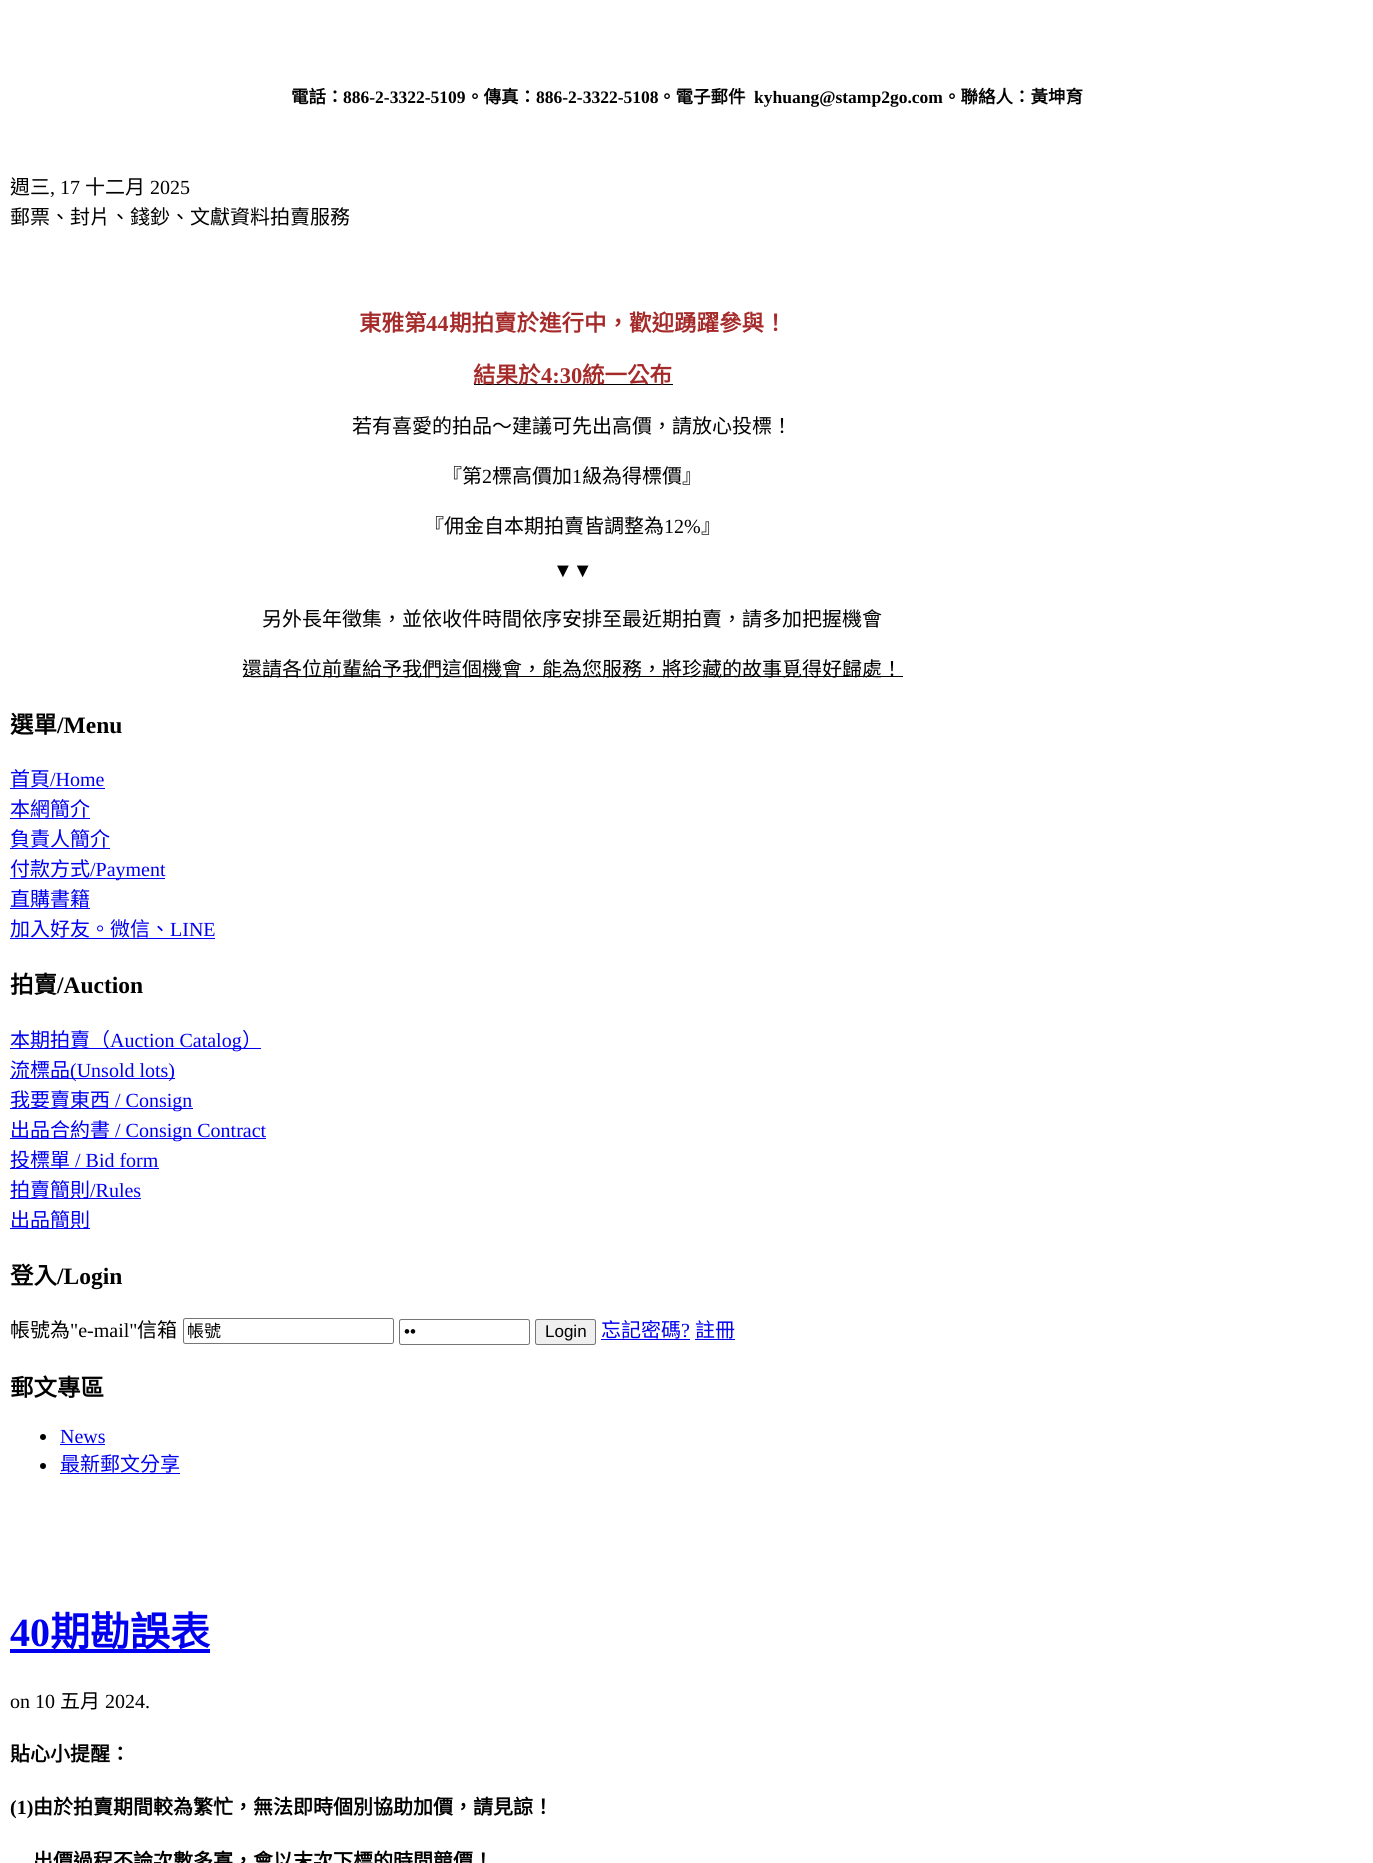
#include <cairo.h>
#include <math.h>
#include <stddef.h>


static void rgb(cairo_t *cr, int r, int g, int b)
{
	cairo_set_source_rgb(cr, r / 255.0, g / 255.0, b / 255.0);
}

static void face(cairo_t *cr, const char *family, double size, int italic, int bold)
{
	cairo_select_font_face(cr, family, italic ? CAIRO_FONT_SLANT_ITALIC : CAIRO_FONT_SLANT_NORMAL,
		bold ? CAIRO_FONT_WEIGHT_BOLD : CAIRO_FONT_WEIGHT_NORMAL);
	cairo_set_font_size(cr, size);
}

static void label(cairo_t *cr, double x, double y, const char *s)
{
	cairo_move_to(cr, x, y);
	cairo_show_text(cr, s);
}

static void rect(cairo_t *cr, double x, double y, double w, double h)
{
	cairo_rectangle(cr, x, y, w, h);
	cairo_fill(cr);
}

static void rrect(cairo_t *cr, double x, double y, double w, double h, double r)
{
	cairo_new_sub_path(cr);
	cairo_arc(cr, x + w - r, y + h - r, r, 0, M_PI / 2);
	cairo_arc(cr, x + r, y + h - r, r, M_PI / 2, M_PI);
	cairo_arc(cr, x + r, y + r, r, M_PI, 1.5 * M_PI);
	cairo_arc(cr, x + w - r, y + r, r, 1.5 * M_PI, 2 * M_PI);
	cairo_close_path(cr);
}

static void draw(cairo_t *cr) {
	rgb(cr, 255, 255, 255);
	cairo_paint(cr);
	face(cr, "Noto Sans CJK TC", 17.5, 0, 1);
	rgb(cr, 0, 0, 0);
	label(cr, 291, 103, "電話：");
	face(cr, "Liberation Serif", 17.5, 0, 1);
	label(cr, 343, 103, "886-2-3322-5109");
	face(cr, "Noto Sans CJK TC", 17.5, 0, 1);
	label(cr, 466, 103, "。傳真：");
	face(cr, "Liberation Serif", 17.5, 0, 1);
	label(cr, 536, 103, "886-2-3322-5108");
	face(cr, "Noto Sans CJK TC", 17.5, 0, 1);
	label(cr, 658, 103, "。電子郵件");
	face(cr, "Liberation Serif", 17.5, 0, 1);
	label(cr, 754, 103, "kyhuang@stamp2go.com");
	face(cr, "Noto Sans CJK TC", 17.5, 0, 1);
	label(cr, 943, 103, "。聯絡人：黃坤育");
	face(cr, "Noto Sans CJK TC", 20, 0, 0);
	label(cr, 10, 194, "週三");
	face(cr, "Liberation Serif", 20, 0, 0);
	label(cr, 50, 194, ", 17");
	face(cr, "Noto Sans CJK TC", 20, 0, 0);
	label(cr, 85, 194, "十二月");
	face(cr, "Liberation Serif", 20, 0, 0);
	label(cr, 150, 194, "2025");
	face(cr, "Noto Sans CJK TC", 20, 0, 0);
	label(cr, 10, 224, "郵票、封片、錢鈔、文獻資料拍賣服務");
	face(cr, "Noto Sans CJK TC", 22.5, 0, 1);
	rgb(cr, 165, 42, 42);
	label(cr, 359, 331, "東雅第");
	face(cr, "Liberation Serif", 22.5, 0, 1);
	label(cr, 426, 331, "44");
	face(cr, "Noto Sans CJK TC", 22.5, 0, 1);
	label(cr, 449, 331, "期拍賣於進行中，歡迎踴躍參與！");
	rgb(cr, 0, 0, 0);
	rect(cr, 474, 384, 199, 1);
	rgb(cr, 165, 42, 42);
	label(cr, 473, 383, "結果於");
	face(cr, "Liberation Serif", 22.5, 0, 1);
	label(cr, 541, 383, "4:30");
	face(cr, "Noto Sans CJK TC", 22.5, 0, 1);
	label(cr, 582, 383, "統一公布");
	face(cr, "Noto Sans CJK TC", 20, 0, 0);
	rgb(cr, 0, 0, 0);
	label(cr, 352, 433, "若有喜愛的拍品～建議可先出高價，請放心投標！");
	label(cr, 442, 483, "『第");
	face(cr, "Liberation Serif", 20, 0, 0);
	label(cr, 482, 483, "2");
	face(cr, "Noto Sans CJK TC", 20, 0, 0);
	label(cr, 492, 483, "標高價加");
	face(cr, "Liberation Serif", 20, 0, 0);
	label(cr, 572, 483, "1");
	face(cr, "Noto Sans CJK TC", 20, 0, 0);
	label(cr, 582, 483, "級為得標價』");
	label(cr, 424, 533, "『佣金自本期拍賣皆調整為");
	face(cr, "Liberation Serif", 20, 0, 0);
	label(cr, 664, 533, "12%");
	face(cr, "Noto Sans CJK TC", 20, 0, 0);
	label(cr, 701, 533, "』");
	face(cr, "Liberation Serif", 20, 0, 0);
	label(cr, 553, 577, "▼▼");
	face(cr, "Noto Sans CJK TC", 20, 0, 0);
	label(cr, 262, 626, "另外長年徵集，並依收件時間依序安排至最近期拍賣，請多加把握機會");
	rect(cr, 243, 676, 660, 1);
	label(cr, 242, 676, "還請各位前輩給予我們這個機會，能為您服務，將珍藏的故事覓得好歸處！");
	face(cr, "Noto Sans CJK TC", 23.5, 0, 1);
	label(cr, 10, 733, "選單");
	face(cr, "Liberation Serif", 23.5, 0, 1);
	label(cr, 57, 733, "/Menu");
	face(cr, "Noto Sans CJK TC", 20, 0, 0);
	rgb(cr, 0, 0, 238);
	label(cr, 10, 786, "首頁");
	face(cr, "Liberation Serif", 20, 0, 0);
	label(cr, 50, 786, "/Home");
	rect(cr, 10, 788, 95, 1);
	face(cr, "Noto Sans CJK TC", 20, 0, 0);
	label(cr, 10, 816, "本網簡介");
	rect(cr, 10, 818, 80, 1);
	label(cr, 10, 846, "負責人簡介");
	rect(cr, 10, 848, 100, 1);
	label(cr, 10, 876, "付款方式");
	rect(cr, 10, 878, 155, 1);
	face(cr, "Liberation Serif", 20, 0, 0);
	label(cr, 90, 876, "/Payment");
	face(cr, "Noto Sans CJK TC", 20, 0, 0);
	label(cr, 10, 906, "直購書籍");
	rect(cr, 10, 908, 80, 1);
	label(cr, 10, 936, "加入好友。微信、");
	face(cr, "Liberation Serif", 20, 0, 0);
	label(cr, 170, 936, "LINE");
	rect(cr, 10, 938, 205, 1);
	face(cr, "Noto Sans CJK TC", 23.5, 0, 1);
	rgb(cr, 0, 0, 0);
	label(cr, 10, 993, "拍賣");
	face(cr, "Liberation Serif", 23.5, 0, 1);
	label(cr, 57, 993, "/Auction");
	rgb(cr, 0, 0, 238);
	rect(cr, 10, 1048, 251, 1);
	face(cr, "Noto Sans CJK TC", 20, 0, 0);
	label(cr, 10, 1047, "本期拍賣（");
	face(cr, "Liberation Serif", 20, 0, 0);
	label(cr, 110, 1047, "Auction Catalog");
	face(cr, "Noto Sans CJK TC", 20, 0, 0);
	label(cr, 242, 1047, "）");
	rect(cr, 10, 1078, 165, 1);
	label(cr, 10, 1077, "流標品");
	face(cr, "Liberation Serif", 20, 0, 0);
	label(cr, 70, 1077, "(Unsold lots)");
	rect(cr, 10, 1108, 183, 1);
	face(cr, "Noto Sans CJK TC", 20, 0, 0);
	label(cr, 10, 1107, "我要賣東西");
	face(cr, "Liberation Serif", 20, 0, 0);
	label(cr, 115, 1107, "/ Consign");
	rect(cr, 10, 1138, 256, 1);
	face(cr, "Noto Sans CJK TC", 20, 0, 0);
	label(cr, 10, 1137, "出品合約書");
	face(cr, "Liberation Serif", 20, 0, 0);
	label(cr, 115, 1137, "/ Consign Contract");
	rect(cr, 10, 1168, 149, 1);
	face(cr, "Noto Sans CJK TC", 20, 0, 0);
	label(cr, 10, 1167, "投標單");
	face(cr, "Liberation Serif", 20, 0, 0);
	label(cr, 75, 1167, "/ Bid form");
	rect(cr, 10, 1198, 131, 1);
	face(cr, "Noto Sans CJK TC", 20, 0, 0);
	label(cr, 10, 1197, "拍賣簡則");
	face(cr, "Liberation Serif", 20, 0, 0);
	label(cr, 90, 1197, "/Rules");
	rect(cr, 10, 1228, 80, 1);
	face(cr, "Noto Sans CJK TC", 20, 0, 0);
	label(cr, 10, 1227, "出品簡則");
	face(cr, "Noto Sans CJK TC", 23.5, 0, 1);
	rgb(cr, 0, 0, 0);
	label(cr, 10, 1284, "登入");
	face(cr, "Liberation Serif", 23.5, 0, 1);
	label(cr, 57, 1284, "/Login");
	face(cr, "Noto Sans CJK TC", 20, 0, 0);
	label(cr, 10, 1337, "帳號為");
	face(cr, "Liberation Serif", 20, 0, 0);
	label(cr, 70, 1337, "\"e-mail\"");
	face(cr, "Noto Sans CJK TC", 20, 0, 0);
	label(cr, 137, 1337, "信箱");
	rrect(cr, 183.5, 1318.5, 210, 25, 2);
	rgb(cr, 118, 118, 118);
	cairo_set_line_width(cr, 1);
	cairo_stroke(cr);
	face(cr, "Noto Sans CJK TC", 17, 0, 0);
	rgb(cr, 0, 0, 0);
	label(cr, 187, 1337, "帳號");
	rrect(cr, 399.5, 1319.5, 130, 25, 2);
	rgb(cr, 118, 118, 118);
	cairo_stroke(cr);
	face(cr, "Liberation Sans", 17, 0, 0);
	rgb(cr, 0, 0, 0);
	label(cr, 404, 1337, "••");
	rgb(cr, 239, 239, 239);
	rrect(cr, 535.5, 1319.5, 60, 25, 2);
	cairo_fill_preserve(cr);
	rgb(cr, 118, 118, 118);
	cairo_stroke(cr);
	rgb(cr, 0, 0, 0);
	label(cr, 545, 1337, "Login");
	face(cr, "Noto Sans CJK TC", 20, 0, 0);
	rgb(cr, 0, 0, 238);
	label(cr, 601, 1337, "忘記密碼");
	face(cr, "Liberation Serif", 20, 0, 0);
	label(cr, 681, 1337, "?");
	rect(cr, 601, 1339, 89, 1);
	face(cr, "Noto Sans CJK TC", 20, 0, 0);
	label(cr, 695, 1337, "註冊");
	rect(cr, 695, 1339, 40, 1);
	face(cr, "Noto Sans CJK TC", 23.5, 0, 1);
	rgb(cr, 0, 0, 0);
	label(cr, 10, 1396, "郵文專區");
	cairo_new_path(cr);
	cairo_arc(cr, 43, 1437, 3, 0, 2 * M_PI);
	cairo_fill(cr);
	face(cr, "Liberation Serif", 20, 0, 0);
	rgb(cr, 0, 0, 238);
	label(cr, 60, 1443, "News");
	rect(cr, 60, 1444, 45, 1);
	rgb(cr, 0, 0, 0);
	cairo_new_path(cr);
	cairo_arc(cr, 43, 1466, 3, 0, 2 * M_PI);
	cairo_fill(cr);
	face(cr, "Noto Sans CJK TC", 20, 0, 0);
	rgb(cr, 0, 0, 238);
	label(cr, 60, 1471, "最新郵文分享");
	rect(cr, 60, 1473, 120, 1);
	face(cr, "Liberation Serif", 40, 0, 1);
	label(cr, 10, 1646, "40");
	rect(cr, 10, 1649, 200, 4);
	face(cr, "Noto Sans CJK TC", 40, 0, 1);
	label(cr, 50, 1646, "期勘誤表");
	face(cr, "Liberation Serif", 20, 0, 0);
	rgb(cr, 0, 0, 0);
	label(cr, 10, 1708, "on 10");
	face(cr, "Noto Sans CJK TC", 20, 0, 0);
	label(cr, 60, 1708, "五月");
	face(cr, "Liberation Serif", 20, 0, 0);
	label(cr, 105, 1708, "2024.");
	face(cr, "Noto Sans CJK TC", 20, 0, 1);
	label(cr, 10, 1761, "貼心小提醒：");
	face(cr, "Liberation Serif", 20, 0, 1);
	label(cr, 10, 1814, "(1)");
	face(cr, "Noto Sans CJK TC", 20, 0, 1);
	label(cr, 33, 1814, "由於拍賣期間較為繁忙，無法即時個別協助加價，請見諒！");
	label(cr, 33, 1868, "出價過程不論次數多寡，會以末次下標的時間競價！");
}

int main(void) {
	cairo_surface_t *surface = cairo_image_surface_create(CAIRO_FORMAT_RGB24, 1373, 1863);
	cairo_t *cr = cairo_create(surface);
	cairo_font_options_t *options = cairo_font_options_create();
	cairo_font_options_set_hint_metrics(options, CAIRO_HINT_METRICS_OFF);
	cairo_font_options_set_hint_style(options, CAIRO_HINT_STYLE_NONE);
	cairo_set_font_options(cr, options);
	cairo_set_miter_limit(cr, 4);
	draw(cr);
	cairo_surface_write_to_png(surface, "render.png");
	cairo_font_options_destroy(options);
	cairo_destroy(cr);
	cairo_surface_destroy(surface);
	return 0;
}
